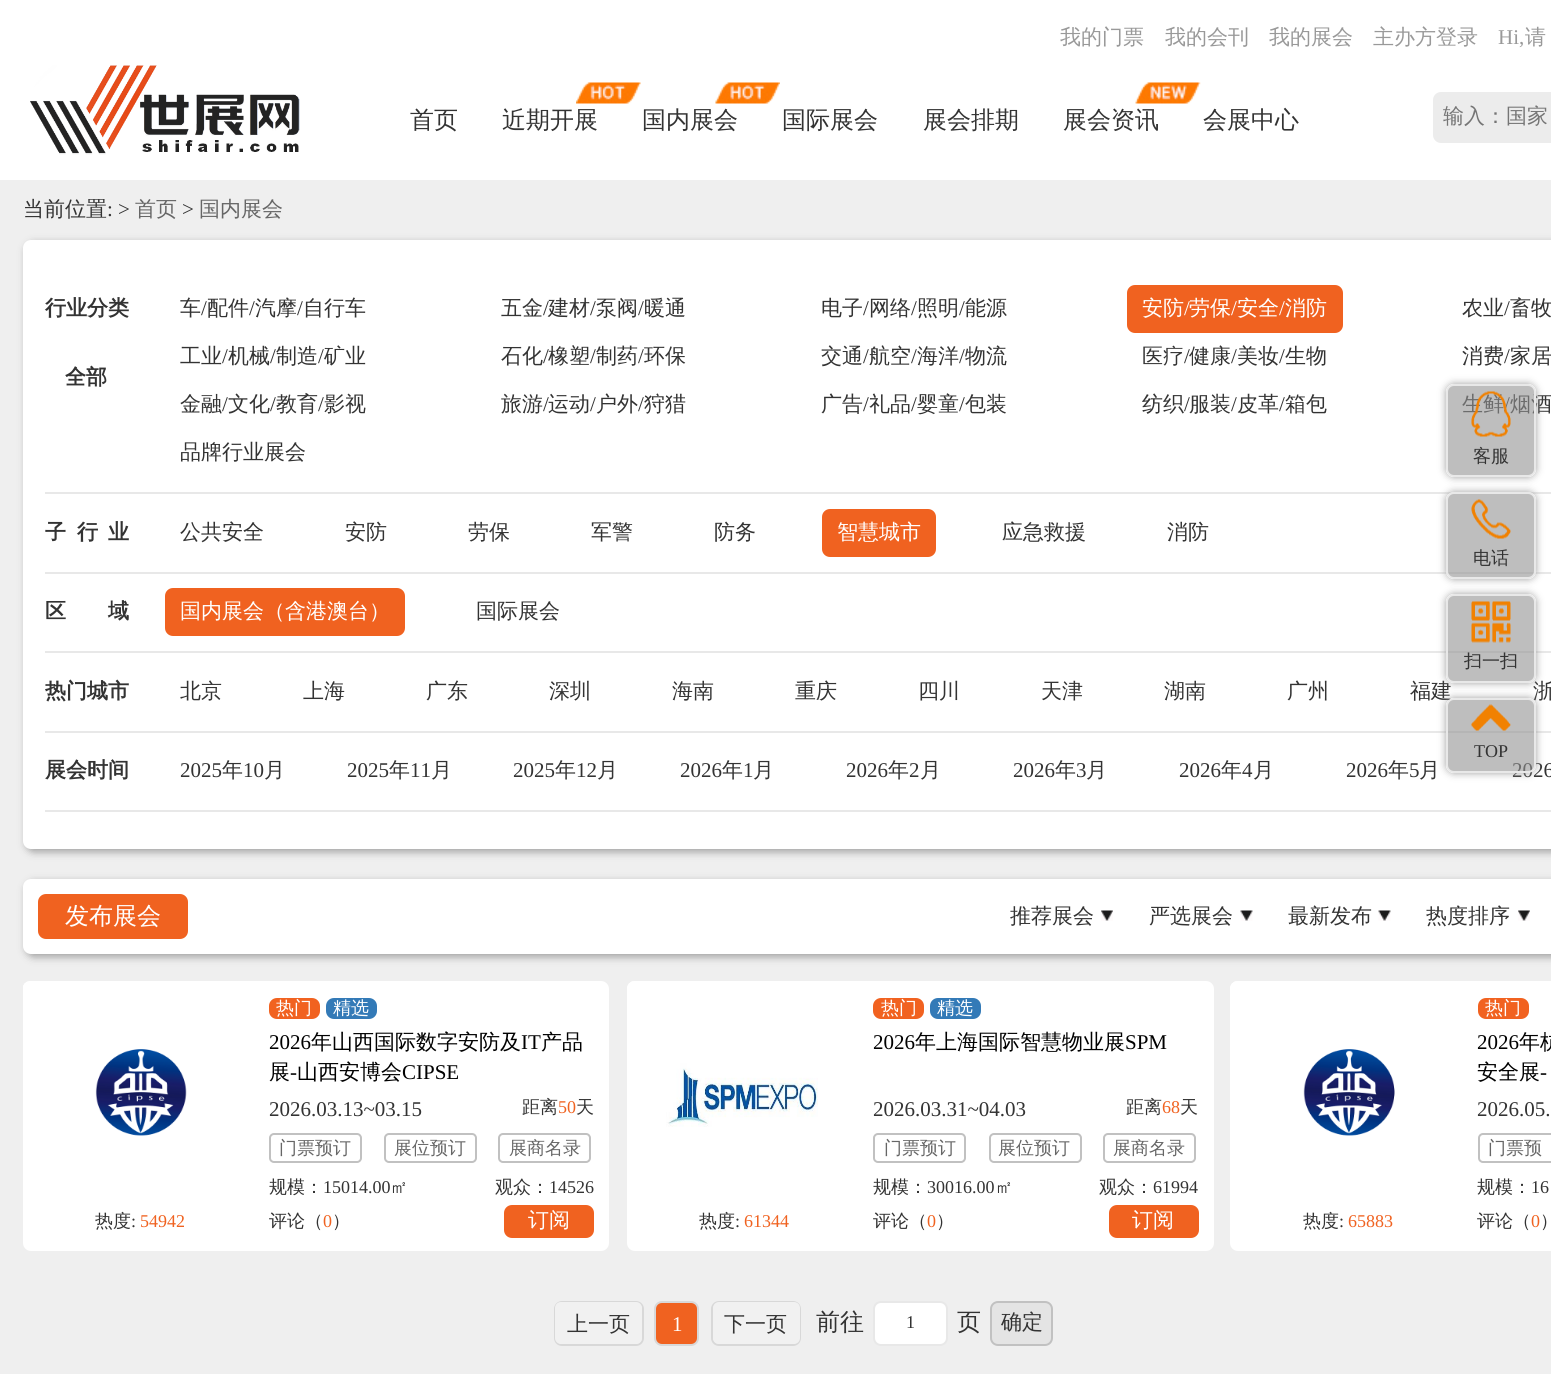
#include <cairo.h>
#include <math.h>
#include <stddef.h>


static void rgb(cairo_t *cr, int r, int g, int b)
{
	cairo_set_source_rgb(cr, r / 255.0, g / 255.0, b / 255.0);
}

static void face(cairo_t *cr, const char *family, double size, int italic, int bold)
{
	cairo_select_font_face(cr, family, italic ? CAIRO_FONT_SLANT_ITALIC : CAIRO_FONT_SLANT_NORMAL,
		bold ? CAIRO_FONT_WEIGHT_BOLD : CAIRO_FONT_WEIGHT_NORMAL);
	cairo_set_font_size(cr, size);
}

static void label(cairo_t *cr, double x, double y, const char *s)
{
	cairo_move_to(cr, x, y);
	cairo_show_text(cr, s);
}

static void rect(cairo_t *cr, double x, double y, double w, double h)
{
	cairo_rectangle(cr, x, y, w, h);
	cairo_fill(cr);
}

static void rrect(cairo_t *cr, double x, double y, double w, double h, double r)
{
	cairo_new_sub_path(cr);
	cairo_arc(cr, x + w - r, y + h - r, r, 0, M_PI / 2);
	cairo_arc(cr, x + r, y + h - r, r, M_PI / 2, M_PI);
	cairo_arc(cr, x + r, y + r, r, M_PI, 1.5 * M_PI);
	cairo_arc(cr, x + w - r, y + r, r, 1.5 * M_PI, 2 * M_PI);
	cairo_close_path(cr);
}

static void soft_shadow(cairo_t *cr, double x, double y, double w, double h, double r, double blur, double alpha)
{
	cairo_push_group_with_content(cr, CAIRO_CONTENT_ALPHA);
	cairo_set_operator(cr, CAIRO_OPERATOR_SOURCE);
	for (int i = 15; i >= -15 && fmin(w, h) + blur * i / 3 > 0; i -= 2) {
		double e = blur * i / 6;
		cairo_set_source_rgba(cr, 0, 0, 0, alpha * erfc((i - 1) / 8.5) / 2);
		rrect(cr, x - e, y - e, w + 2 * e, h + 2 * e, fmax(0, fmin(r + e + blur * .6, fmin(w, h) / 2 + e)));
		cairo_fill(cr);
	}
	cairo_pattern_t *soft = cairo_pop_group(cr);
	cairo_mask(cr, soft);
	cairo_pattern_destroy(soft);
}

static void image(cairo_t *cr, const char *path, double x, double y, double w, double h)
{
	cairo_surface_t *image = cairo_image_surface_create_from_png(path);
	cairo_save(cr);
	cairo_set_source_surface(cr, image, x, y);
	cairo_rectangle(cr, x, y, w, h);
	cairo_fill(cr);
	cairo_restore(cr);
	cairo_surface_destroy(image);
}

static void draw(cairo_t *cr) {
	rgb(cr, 239, 239, 239);
	cairo_paint(cr);
	rgb(cr, 255, 255, 255);
	rect(cr, 0, 0, 1551, 180);
	face(cr, "WenQuanYi Zen Hei Medium", 21, 0, 0);
	rgb(cr, 153, 153, 153);
	label(cr, 1060, 44, "我的门票");
	label(cr, 1165, 44, "我的会刊");
	label(cr, 1269, 44, "我的展会");
	label(cr, 1373, 44, "主办方登录");
	face(cr, "Liberation Serif", 21, 0, 0);
	label(cr, 1498, 44, "Hi,");
	face(cr, "WenQuanYi Zen Hei Medium", 21, 0, 0);
	label(cr, 1525, 44, "请");
	image(cr, "image0.png", 30, 65, 270, 90);
	face(cr, "WenQuanYi Zen Hei Medium", 24, 0, 0);
	rgb(cr, 51, 51, 51);
	label(cr, 410, 128, "首页");
	image(cr, "image1.png", 576, 82, 65, 22);
	label(cr, 502, 128, "近期开展");
	image(cr, "image2.png", 715, 82, 65, 22);
	label(cr, 642, 128, "国内展会");
	label(cr, 782, 128, "国际展会");
	label(cr, 923, 128, "展会排期");
	image(cr, "image3.png", 1135, 82, 66, 22);
	label(cr, 1063, 128, "展会资讯");
	label(cr, 1203, 128, "会展中心");
	rgb(cr, 236, 236, 236);
	rrect(cr, 1433, 92, 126, 51, 8);
	cairo_fill(cr);
	face(cr, "WenQuanYi Zen Hei Medium", 21, 0, 0);
	rgb(cr, 117, 117, 117);
	label(cr, 1443, 123, "输入：国家");
	rgb(cr, 51, 51, 51);
	label(cr, 23, 216, "当前位置");
	face(cr, "Liberation Serif", 21, 0, 0);
	label(cr, 107, 216, ": >");
	face(cr, "WenQuanYi Zen Hei Medium", 21, 0, 0);
	rgb(cr, 102, 102, 102);
	label(cr, 135, 216, "首页");
	face(cr, "Liberation Serif", 21, 0, 0);
	rgb(cr, 51, 51, 51);
	label(cr, 182, 216, ">");
	face(cr, "WenQuanYi Zen Hei Medium", 21, 0, 0);
	rgb(cr, 102, 102, 102);
	label(cr, 199, 216, "国内展会");
	rgb(cr, 161, 161, 161);
	soft_shadow(cr, 26, 243, 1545, 609, 8, 4, 1);
	rgb(cr, 255, 255, 255);
	rrect(cr, 23, 240, 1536, 609, 8);
	cairo_fill(cr);
	rgb(cr, 232, 232, 232);
	rect(cr, 45, 492, 1506, 2);
	face(cr, "WenQuanYi Zen Hei", 21, 0, 1);
	rgb(cr, 51, 51, 51);
	label(cr, 45, 315, "行业分类");
	label(cr, 65, 384, "全部");
	face(cr, "WenQuanYi Zen Hei Medium", 21, 0, 0);
	label(cr, 180, 315, "车");
	face(cr, "Liberation Serif", 21, 0, 0);
	label(cr, 201, 315, "/");
	face(cr, "WenQuanYi Zen Hei Medium", 21, 0, 0);
	label(cr, 207, 315, "配件");
	face(cr, "Liberation Serif", 21, 0, 0);
	label(cr, 249, 315, "/");
	face(cr, "WenQuanYi Zen Hei Medium", 21, 0, 0);
	label(cr, 255, 315, "汽摩");
	face(cr, "Liberation Serif", 21, 0, 0);
	label(cr, 297, 315, "/");
	face(cr, "WenQuanYi Zen Hei Medium", 21, 0, 0);
	label(cr, 303, 315, "自行车");
	label(cr, 501, 315, "五金");
	face(cr, "Liberation Serif", 21, 0, 0);
	label(cr, 543, 315, "/");
	face(cr, "WenQuanYi Zen Hei Medium", 21, 0, 0);
	label(cr, 548, 315, "建材");
	face(cr, "Liberation Serif", 21, 0, 0);
	label(cr, 590, 315, "/");
	face(cr, "WenQuanYi Zen Hei Medium", 21, 0, 0);
	label(cr, 596, 315, "泵阀");
	face(cr, "Liberation Serif", 21, 0, 0);
	label(cr, 638, 315, "/");
	face(cr, "WenQuanYi Zen Hei Medium", 21, 0, 0);
	label(cr, 644, 315, "暖通");
	label(cr, 821, 315, "电子");
	face(cr, "Liberation Serif", 21, 0, 0);
	label(cr, 863, 315, "/");
	face(cr, "WenQuanYi Zen Hei Medium", 21, 0, 0);
	label(cr, 869, 315, "网络");
	face(cr, "Liberation Serif", 21, 0, 0);
	label(cr, 911, 315, "/");
	face(cr, "WenQuanYi Zen Hei Medium", 21, 0, 0);
	label(cr, 917, 315, "照明");
	face(cr, "Liberation Serif", 21, 0, 0);
	label(cr, 959, 315, "/");
	face(cr, "WenQuanYi Zen Hei Medium", 21, 0, 0);
	label(cr, 965, 315, "能源");
	rgb(cr, 240, 98, 32);
	rrect(cr, 1127, 285, 216, 48, 8);
	cairo_fill(cr);
	rgb(cr, 255, 255, 255);
	label(cr, 1142, 315, "安防");
	face(cr, "Liberation Serif", 21, 0, 0);
	label(cr, 1184, 315, "/");
	face(cr, "WenQuanYi Zen Hei Medium", 21, 0, 0);
	label(cr, 1189, 315, "劳保");
	face(cr, "Liberation Serif", 21, 0, 0);
	label(cr, 1231, 315, "/");
	face(cr, "WenQuanYi Zen Hei Medium", 21, 0, 0);
	label(cr, 1237, 315, "安全");
	face(cr, "Liberation Serif", 21, 0, 0);
	label(cr, 1279, 315, "/");
	face(cr, "WenQuanYi Zen Hei Medium", 21, 0, 0);
	label(cr, 1285, 315, "消防");
	rgb(cr, 51, 51, 51);
	label(cr, 1462, 315, "农业");
	face(cr, "Liberation Serif", 21, 0, 0);
	label(cr, 1504, 315, "/");
	face(cr, "WenQuanYi Zen Hei Medium", 21, 0, 0);
	label(cr, 1510, 315, "畜牧");
	label(cr, 180, 363, "工业");
	face(cr, "Liberation Serif", 21, 0, 0);
	label(cr, 222, 363, "/");
	face(cr, "WenQuanYi Zen Hei Medium", 21, 0, 0);
	label(cr, 228, 363, "机械");
	face(cr, "Liberation Serif", 21, 0, 0);
	label(cr, 270, 363, "/");
	face(cr, "WenQuanYi Zen Hei Medium", 21, 0, 0);
	label(cr, 276, 363, "制造");
	face(cr, "Liberation Serif", 21, 0, 0);
	label(cr, 318, 363, "/");
	face(cr, "WenQuanYi Zen Hei Medium", 21, 0, 0);
	label(cr, 324, 363, "矿业");
	label(cr, 501, 363, "石化");
	face(cr, "Liberation Serif", 21, 0, 0);
	label(cr, 543, 363, "/");
	face(cr, "WenQuanYi Zen Hei Medium", 21, 0, 0);
	label(cr, 548, 363, "橡塑");
	face(cr, "Liberation Serif", 21, 0, 0);
	label(cr, 590, 363, "/");
	face(cr, "WenQuanYi Zen Hei Medium", 21, 0, 0);
	label(cr, 596, 363, "制药");
	face(cr, "Liberation Serif", 21, 0, 0);
	label(cr, 638, 363, "/");
	face(cr, "WenQuanYi Zen Hei Medium", 21, 0, 0);
	label(cr, 644, 363, "环保");
	label(cr, 821, 363, "交通");
	face(cr, "Liberation Serif", 21, 0, 0);
	label(cr, 863, 363, "/");
	face(cr, "WenQuanYi Zen Hei Medium", 21, 0, 0);
	label(cr, 869, 363, "航空");
	face(cr, "Liberation Serif", 21, 0, 0);
	label(cr, 911, 363, "/");
	face(cr, "WenQuanYi Zen Hei Medium", 21, 0, 0);
	label(cr, 917, 363, "海洋");
	face(cr, "Liberation Serif", 21, 0, 0);
	label(cr, 959, 363, "/");
	face(cr, "WenQuanYi Zen Hei Medium", 21, 0, 0);
	label(cr, 965, 363, "物流");
	label(cr, 1142, 363, "医疗");
	face(cr, "Liberation Serif", 21, 0, 0);
	label(cr, 1184, 363, "/");
	face(cr, "WenQuanYi Zen Hei Medium", 21, 0, 0);
	label(cr, 1189, 363, "健康");
	face(cr, "Liberation Serif", 21, 0, 0);
	label(cr, 1231, 363, "/");
	face(cr, "WenQuanYi Zen Hei Medium", 21, 0, 0);
	label(cr, 1237, 363, "美妆");
	face(cr, "Liberation Serif", 21, 0, 0);
	label(cr, 1279, 363, "/");
	face(cr, "WenQuanYi Zen Hei Medium", 21, 0, 0);
	label(cr, 1285, 363, "生物");
	label(cr, 1462, 363, "消费");
	face(cr, "Liberation Serif", 21, 0, 0);
	label(cr, 1504, 363, "/");
	face(cr, "WenQuanYi Zen Hei Medium", 21, 0, 0);
	label(cr, 1510, 363, "家居");
	label(cr, 180, 411, "金融");
	face(cr, "Liberation Serif", 21, 0, 0);
	label(cr, 222, 411, "/");
	face(cr, "WenQuanYi Zen Hei Medium", 21, 0, 0);
	label(cr, 228, 411, "文化");
	face(cr, "Liberation Serif", 21, 0, 0);
	label(cr, 270, 411, "/");
	face(cr, "WenQuanYi Zen Hei Medium", 21, 0, 0);
	label(cr, 276, 411, "教育");
	face(cr, "Liberation Serif", 21, 0, 0);
	label(cr, 318, 411, "/");
	face(cr, "WenQuanYi Zen Hei Medium", 21, 0, 0);
	label(cr, 324, 411, "影视");
	label(cr, 501, 411, "旅游");
	face(cr, "Liberation Serif", 21, 0, 0);
	label(cr, 543, 411, "/");
	face(cr, "WenQuanYi Zen Hei Medium", 21, 0, 0);
	label(cr, 548, 411, "运动");
	face(cr, "Liberation Serif", 21, 0, 0);
	label(cr, 590, 411, "/");
	face(cr, "WenQuanYi Zen Hei Medium", 21, 0, 0);
	label(cr, 596, 411, "户外");
	face(cr, "Liberation Serif", 21, 0, 0);
	label(cr, 638, 411, "/");
	face(cr, "WenQuanYi Zen Hei Medium", 21, 0, 0);
	label(cr, 644, 411, "狩猎");
	label(cr, 821, 411, "广告");
	face(cr, "Liberation Serif", 21, 0, 0);
	label(cr, 863, 411, "/");
	face(cr, "WenQuanYi Zen Hei Medium", 21, 0, 0);
	label(cr, 869, 411, "礼品");
	face(cr, "Liberation Serif", 21, 0, 0);
	label(cr, 911, 411, "/");
	face(cr, "WenQuanYi Zen Hei Medium", 21, 0, 0);
	label(cr, 917, 411, "婴童");
	face(cr, "Liberation Serif", 21, 0, 0);
	label(cr, 959, 411, "/");
	face(cr, "WenQuanYi Zen Hei Medium", 21, 0, 0);
	label(cr, 965, 411, "包装");
	label(cr, 1142, 411, "纺织");
	face(cr, "Liberation Serif", 21, 0, 0);
	label(cr, 1184, 411, "/");
	face(cr, "WenQuanYi Zen Hei Medium", 21, 0, 0);
	label(cr, 1189, 411, "服装");
	face(cr, "Liberation Serif", 21, 0, 0);
	label(cr, 1231, 411, "/");
	face(cr, "WenQuanYi Zen Hei Medium", 21, 0, 0);
	label(cr, 1237, 411, "皮革");
	face(cr, "Liberation Serif", 21, 0, 0);
	label(cr, 1279, 411, "/");
	face(cr, "WenQuanYi Zen Hei Medium", 21, 0, 0);
	label(cr, 1285, 411, "箱包");
	label(cr, 1462, 411, "生鲜");
	face(cr, "Liberation Serif", 21, 0, 0);
	label(cr, 1504, 411, "/");
	face(cr, "WenQuanYi Zen Hei Medium", 21, 0, 0);
	label(cr, 1510, 411, "烟酒");
	label(cr, 180, 459, "品牌行业展会");
	rgb(cr, 232, 232, 232);
	rect(cr, 45, 572, 1506, 2);
	face(cr, "WenQuanYi Zen Hei", 21, 0, 1);
	rgb(cr, 51, 51, 51);
	label(cr, 45, 539, "子");
	label(cr, 77, 539, "行");
	label(cr, 108, 539, "业");
	face(cr, "WenQuanYi Zen Hei Medium", 21, 0, 0);
	label(cr, 180, 539, "公共安全");
	label(cr, 345, 539, "安防");
	label(cr, 468, 539, "劳保");
	label(cr, 591, 539, "军警");
	label(cr, 714, 539, "防务");
	rgb(cr, 240, 98, 32);
	rrect(cr, 822, 509, 114, 48, 8);
	cairo_fill(cr);
	rgb(cr, 255, 255, 255);
	label(cr, 837, 539, "智慧城市");
	rgb(cr, 51, 51, 51);
	label(cr, 1002, 539, "应急救援");
	label(cr, 1167, 539, "消防");
	rgb(cr, 232, 232, 232);
	rect(cr, 45, 651, 1506, 2);
	face(cr, "WenQuanYi Zen Hei", 21, 0, 1);
	rgb(cr, 51, 51, 51);
	label(cr, 45, 618, "区");
	label(cr, 108, 618, "域");
	rgb(cr, 240, 98, 32);
	rrect(cr, 165, 588, 240, 48, 8);
	cairo_fill(cr);
	face(cr, "WenQuanYi Zen Hei Medium", 21, 0, 0);
	rgb(cr, 255, 255, 255);
	label(cr, 180, 618, "国内展会（含港澳台）");
	rgb(cr, 51, 51, 51);
	label(cr, 476, 618, "国际展会");
	rgb(cr, 232, 232, 232);
	rect(cr, 45, 731, 1506, 2);
	face(cr, "WenQuanYi Zen Hei", 21, 0, 1);
	rgb(cr, 51, 51, 51);
	label(cr, 45, 698, "热门城市");
	face(cr, "WenQuanYi Zen Hei Medium", 21, 0, 0);
	label(cr, 180, 698, "北京");
	label(cr, 303, 698, "上海");
	label(cr, 426, 698, "广东");
	label(cr, 549, 698, "深圳");
	label(cr, 672, 698, "海南");
	label(cr, 795, 698, "重庆");
	label(cr, 918, 698, "四川");
	label(cr, 1041, 698, "天津");
	label(cr, 1164, 698, "湖南");
	label(cr, 1287, 698, "广州");
	label(cr, 1410, 698, "福建");
	label(cr, 1533, 698, "浙");
	rgb(cr, 232, 232, 232);
	rect(cr, 45, 810, 1506, 2);
	face(cr, "WenQuanYi Zen Hei", 21, 0, 1);
	rgb(cr, 51, 51, 51);
	label(cr, 45, 777, "展会时间");
	face(cr, "Liberation Serif", 21, 0, 0);
	label(cr, 180, 777, "2025");
	face(cr, "WenQuanYi Zen Hei Medium", 21, 0, 0);
	label(cr, 222, 777, "年");
	face(cr, "Liberation Serif", 21, 0, 0);
	label(cr, 243, 777, "10");
	face(cr, "WenQuanYi Zen Hei Medium", 21, 0, 0);
	label(cr, 264, 777, "月");
	face(cr, "Liberation Serif", 21, 0, 0);
	label(cr, 347, 777, "2025");
	face(cr, "WenQuanYi Zen Hei Medium", 21, 0, 0);
	label(cr, 389, 777, "年");
	face(cr, "Liberation Serif", 21, 0, 0);
	label(cr, 410, 777, "11");
	face(cr, "WenQuanYi Zen Hei Medium", 21, 0, 0);
	label(cr, 431, 777, "月");
	face(cr, "Liberation Serif", 21, 0, 0);
	label(cr, 513, 777, "2025");
	face(cr, "WenQuanYi Zen Hei Medium", 21, 0, 0);
	label(cr, 555, 777, "年");
	face(cr, "Liberation Serif", 21, 0, 0);
	label(cr, 576, 777, "12");
	face(cr, "WenQuanYi Zen Hei Medium", 21, 0, 0);
	label(cr, 597, 777, "月");
	face(cr, "Liberation Serif", 21, 0, 0);
	label(cr, 680, 777, "2026");
	face(cr, "WenQuanYi Zen Hei Medium", 21, 0, 0);
	label(cr, 722, 777, "年");
	face(cr, "Liberation Serif", 21, 0, 0);
	label(cr, 743, 777, "1");
	face(cr, "WenQuanYi Zen Hei Medium", 21, 0, 0);
	label(cr, 753, 777, "月");
	face(cr, "Liberation Serif", 21, 0, 0);
	label(cr, 846, 777, "2026");
	face(cr, "WenQuanYi Zen Hei Medium", 21, 0, 0);
	label(cr, 888, 777, "年");
	face(cr, "Liberation Serif", 21, 0, 0);
	label(cr, 909, 777, "2");
	face(cr, "WenQuanYi Zen Hei Medium", 21, 0, 0);
	label(cr, 920, 777, "月");
	face(cr, "Liberation Serif", 21, 0, 0);
	label(cr, 1013, 777, "2026");
	face(cr, "WenQuanYi Zen Hei Medium", 21, 0, 0);
	label(cr, 1055, 777, "年");
	face(cr, "Liberation Serif", 21, 0, 0);
	label(cr, 1076, 777, "3");
	face(cr, "WenQuanYi Zen Hei Medium", 21, 0, 0);
	label(cr, 1086, 777, "月");
	face(cr, "Liberation Serif", 21, 0, 0);
	label(cr, 1179, 777, "2026");
	face(cr, "WenQuanYi Zen Hei Medium", 21, 0, 0);
	label(cr, 1221, 777, "年");
	face(cr, "Liberation Serif", 21, 0, 0);
	label(cr, 1242, 777, "4");
	face(cr, "WenQuanYi Zen Hei Medium", 21, 0, 0);
	label(cr, 1253, 777, "月");
	face(cr, "Liberation Serif", 21, 0, 0);
	label(cr, 1346, 777, "2026");
	face(cr, "WenQuanYi Zen Hei Medium", 21, 0, 0);
	label(cr, 1388, 777, "年");
	face(cr, "Liberation Serif", 21, 0, 0);
	label(cr, 1409, 777, "5");
	face(cr, "WenQuanYi Zen Hei Medium", 21, 0, 0);
	label(cr, 1419, 777, "月");
	face(cr, "Liberation Serif", 21, 0, 0);
	label(cr, 1512, 777, "2026");
	cairo_save(cr);
	cairo_set_fill_rule(cr, CAIRO_FILL_RULE_EVEN_ODD);
	cairo_new_path(cr);
	cairo_move_to(cr, 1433, 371);
	cairo_line_to(cr, 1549, 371);
	cairo_line_to(cr, 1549, 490);
	cairo_line_to(cr, 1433, 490);
	cairo_close_path(cr);
	cairo_move_to(cr, 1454, 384);
	cairo_line_to(cr, 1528, 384);
	cairo_curve_to(cr, 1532.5, 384, 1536, 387.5, 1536, 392);
	cairo_line_to(cr, 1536, 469);
	cairo_curve_to(cr, 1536, 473.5, 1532.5, 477, 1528, 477);
	cairo_line_to(cr, 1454, 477);
	cairo_curve_to(cr, 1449.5, 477, 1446, 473.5, 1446, 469);
	cairo_line_to(cr, 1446, 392);
	cairo_curve_to(cr, 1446, 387.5, 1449.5, 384, 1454, 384);
	cairo_close_path(cr);
	cairo_clip(cr);
	rgb(cr, 161, 161, 161);
	soft_shadow(cr, 1446, 384, 90, 93, 8, 4, 1);
	cairo_restore(cr);
	cairo_set_source_rgba(cr, 0.573, 0.573, 0.573, 0.6);
	rrect(cr, 1447, 385, 88, 91, 7);
	cairo_fill_preserve(cr);
	rgb(cr, 232, 232, 232);
	cairo_stroke(cr);
	image(cr, "image4.png", 1471, 391, 40, 46);
	face(cr, "WenQuanYi Zen Hei Medium", 18, 0, 0);
	rgb(cr, 51, 51, 51);
	label(cr, 1473, 462, "客服");
	cairo_save(cr);
	cairo_set_fill_rule(cr, CAIRO_FILL_RULE_EVEN_ODD);
	cairo_new_path(cr);
	cairo_move_to(cr, 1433, 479);
	cairo_line_to(cr, 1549, 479);
	cairo_line_to(cr, 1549, 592);
	cairo_line_to(cr, 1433, 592);
	cairo_close_path(cr);
	cairo_move_to(cr, 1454, 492);
	cairo_line_to(cr, 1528, 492);
	cairo_curve_to(cr, 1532.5, 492, 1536, 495.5, 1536, 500);
	cairo_line_to(cr, 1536, 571);
	cairo_curve_to(cr, 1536, 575.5, 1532.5, 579, 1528, 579);
	cairo_line_to(cr, 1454, 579);
	cairo_curve_to(cr, 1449.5, 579, 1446, 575.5, 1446, 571);
	cairo_line_to(cr, 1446, 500);
	cairo_curve_to(cr, 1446, 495.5, 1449.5, 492, 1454, 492);
	cairo_close_path(cr);
	cairo_clip(cr);
	rgb(cr, 161, 161, 161);
	soft_shadow(cr, 1446, 492, 90, 87, 8, 4, 1);
	cairo_restore(cr);
	cairo_set_source_rgba(cr, 0.573, 0.573, 0.573, 0.6);
	rrect(cr, 1447, 493, 88, 85, 7);
	cairo_fill_preserve(cr);
	rgb(cr, 232, 232, 232);
	cairo_stroke(cr);
	image(cr, "image5.png", 1471, 499, 40, 40);
	rgb(cr, 51, 51, 51);
	label(cr, 1473, 564, "电话");
	cairo_save(cr);
	cairo_set_fill_rule(cr, CAIRO_FILL_RULE_EVEN_ODD);
	cairo_new_path(cr);
	cairo_move_to(cr, 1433, 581);
	cairo_line_to(cr, 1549, 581);
	cairo_line_to(cr, 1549, 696);
	cairo_line_to(cr, 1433, 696);
	cairo_close_path(cr);
	cairo_move_to(cr, 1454, 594);
	cairo_line_to(cr, 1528, 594);
	cairo_curve_to(cr, 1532.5, 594, 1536, 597.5, 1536, 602);
	cairo_line_to(cr, 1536, 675);
	cairo_curve_to(cr, 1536, 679.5, 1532.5, 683, 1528, 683);
	cairo_line_to(cr, 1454, 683);
	cairo_curve_to(cr, 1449.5, 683, 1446, 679.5, 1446, 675);
	cairo_line_to(cr, 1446, 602);
	cairo_curve_to(cr, 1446, 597.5, 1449.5, 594, 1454, 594);
	cairo_close_path(cr);
	cairo_clip(cr);
	rgb(cr, 161, 161, 161);
	soft_shadow(cr, 1446, 594, 90, 89, 8, 4, 1);
	cairo_restore(cr);
	cairo_set_source_rgba(cr, 0.573, 0.573, 0.573, 0.6);
	rrect(cr, 1447, 595, 88, 87, 7);
	cairo_fill_preserve(cr);
	rgb(cr, 232, 232, 232);
	cairo_stroke(cr);
	image(cr, "image6.png", 1471, 601, 40, 42);
	rgb(cr, 51, 51, 51);
	label(cr, 1464, 667, "扫一扫");
	cairo_save(cr);
	cairo_set_fill_rule(cr, CAIRO_FILL_RULE_EVEN_ODD);
	cairo_new_path(cr);
	cairo_move_to(cr, 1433, 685);
	cairo_line_to(cr, 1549, 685);
	cairo_line_to(cr, 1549, 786);
	cairo_line_to(cr, 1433, 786);
	cairo_close_path(cr);
	cairo_move_to(cr, 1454, 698);
	cairo_line_to(cr, 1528, 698);
	cairo_curve_to(cr, 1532.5, 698, 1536, 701.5, 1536, 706);
	cairo_line_to(cr, 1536, 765);
	cairo_curve_to(cr, 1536, 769.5, 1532.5, 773, 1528, 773);
	cairo_line_to(cr, 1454, 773);
	cairo_curve_to(cr, 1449.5, 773, 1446, 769.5, 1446, 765);
	cairo_line_to(cr, 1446, 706);
	cairo_curve_to(cr, 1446, 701.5, 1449.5, 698, 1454, 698);
	cairo_close_path(cr);
	cairo_clip(cr);
	rgb(cr, 161, 161, 161);
	soft_shadow(cr, 1446, 698, 90, 75, 8, 4, 1);
	cairo_restore(cr);
	cairo_set_source_rgba(cr, 0.573, 0.573, 0.573, 0.6);
	rrect(cr, 1447, 699, 88, 73, 7);
	cairo_fill_preserve(cr);
	rgb(cr, 232, 232, 232);
	cairo_stroke(cr);
	image(cr, "image7.png", 1471, 704, 40, 27);
	face(cr, "Liberation Serif", 18, 0, 0);
	rgb(cr, 51, 51, 51);
	label(cr, 1474, 757, "TOP");
	rgb(cr, 161, 161, 161);
	soft_shadow(cr, 26, 882, 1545, 75, 8, 4, 1);
	rgb(cr, 255, 255, 255);
	rrect(cr, 23, 879, 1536, 75, 8);
	cairo_fill(cr);
	rgb(cr, 240, 98, 32);
	rrect(cr, 38, 894, 150, 45, 8);
	cairo_fill(cr);
	face(cr, "WenQuanYi Zen Hei Medium", 24, 0, 0);
	rgb(cr, 255, 255, 255);
	label(cr, 65, 924, "发布展会");
	face(cr, "WenQuanYi Zen Hei Medium", 21, 0, 0);
	rgb(cr, 51, 51, 51);
	label(cr, 1010, 923, "推荐展会");
	image(cr, "image8.png", 1101, 910, 12, 11);
	label(cr, 1149, 923, "严选展会");
	image(cr, "image9.png", 1240, 910, 13, 11);
	label(cr, 1288, 923, "最新发布");
	image(cr, "image10.png", 1378, 910, 13, 11);
	label(cr, 1426, 923, "热度排序");
	image(cr, "image11.png", 1518, 910, 12, 11);
	rgb(cr, 255, 255, 255);
	rrect(cr, 23, 981, 586, 270, 8);
	cairo_fill(cr);
	image(cr, "image12.png", 23, 981, 164, 155);
	face(cr, "WenQuanYi Zen Hei Medium", 18, 0, 0);
	rgb(cr, 51, 51, 51);
	label(cr, 95, 1227, "热度");
	face(cr, "Liberation Serif", 18, 0, 0);
	label(cr, 131, 1227, ":");
	rgb(cr, 240, 98, 32);
	label(cr, 140, 1227, "54942");
	rgb(cr, 241, 98, 32);
	rrect(cr, 269, 998, 51, 21, 8);
	cairo_fill(cr);
	face(cr, "WenQuanYi Zen Hei Medium", 18, 0, 0);
	rgb(cr, 255, 255, 255);
	label(cr, 276, 1014, "热门");
	rgb(cr, 51, 122, 183);
	rrect(cr, 326, 998, 51, 21, 8);
	cairo_fill(cr);
	rgb(cr, 255, 255, 255);
	label(cr, 333, 1014, "精选");
	face(cr, "Liberation Serif", 21, 0, 0);
	rgb(cr, 0, 0, 0);
	label(cr, 269, 1049, "2026");
	face(cr, "WenQuanYi Zen Hei Medium", 21, 0, 0);
	label(cr, 311, 1049, "年山西国际数字安防及");
	face(cr, "Liberation Serif", 21, 0, 0);
	label(cr, 521, 1049, "IT");
	face(cr, "WenQuanYi Zen Hei Medium", 21, 0, 0);
	label(cr, 541, 1049, "产品");
	label(cr, 269, 1079, "展");
	face(cr, "Liberation Serif", 21, 0, 0);
	label(cr, 290, 1079, "-");
	face(cr, "WenQuanYi Zen Hei Medium", 21, 0, 0);
	label(cr, 297, 1079, "山西安博会");
	face(cr, "Liberation Serif", 21, 0, 0);
	label(cr, 402, 1079, "CIPSE");
	rgb(cr, 51, 51, 51);
	label(cr, 269, 1116, "2026.03.13~03.15");
	face(cr, "WenQuanYi Zen Hei Medium", 18, 0, 0);
	label(cr, 522, 1113, "距离");
	face(cr, "Liberation Serif", 18, 0, 0);
	rgb(cr, 240, 98, 32);
	label(cr, 558, 1113, "50");
	face(cr, "WenQuanYi Zen Hei Medium", 18, 0, 0);
	rgb(cr, 51, 51, 51);
	label(cr, 576, 1113, "天");
	rrect(cr, 270, 1134, 91, 28, 4);
	rgb(cr, 193, 193, 193);
	cairo_stroke(cr);
	rgb(cr, 102, 102, 102);
	label(cr, 279, 1154, "门票预订");
	rrect(cr, 385, 1134, 91, 28, 4);
	rgb(cr, 193, 193, 193);
	cairo_stroke(cr);
	rgb(cr, 102, 102, 102);
	label(cr, 394, 1154, "展位预订");
	rrect(cr, 499, 1134, 91, 28, 4);
	rgb(cr, 193, 193, 193);
	cairo_stroke(cr);
	rgb(cr, 102, 102, 102);
	label(cr, 509, 1154, "展商名录");
	rgb(cr, 51, 51, 51);
	label(cr, 269, 1193, "规模：");
	face(cr, "Liberation Serif", 18, 0, 0);
	label(cr, 323, 1193, "15014.00");
	face(cr, "WenQuanYi Zen Hei Medium", 18, 0, 0);
	label(cr, 390, 1193, "㎡");
	label(cr, 495, 1193, "观众：");
	face(cr, "Liberation Serif", 18, 0, 0);
	label(cr, 549, 1193, "14526");
	face(cr, "WenQuanYi Zen Hei Medium", 18, 0, 0);
	label(cr, 269, 1227, "评论（");
	face(cr, "Liberation Serif", 18, 0, 0);
	rgb(cr, 240, 98, 32);
	label(cr, 323, 1227, "0");
	face(cr, "WenQuanYi Zen Hei Medium", 18, 0, 0);
	rgb(cr, 51, 51, 51);
	label(cr, 332, 1227, "）");
	rgb(cr, 240, 98, 32);
	rrect(cr, 504, 1205, 90, 33, 8);
	cairo_fill(cr);
	face(cr, "WenQuanYi Zen Hei Medium", 21, 0, 0);
	rgb(cr, 255, 255, 255);
	label(cr, 528, 1227, "订阅");
	rrect(cr, 627, 981, 587, 270, 8);
	cairo_fill(cr);
	image(cr, "image13.png", 627, 981, 191, 146);
	face(cr, "WenQuanYi Zen Hei Medium", 18, 0, 0);
	rgb(cr, 51, 51, 51);
	label(cr, 699, 1227, "热度");
	face(cr, "Liberation Serif", 18, 0, 0);
	label(cr, 735, 1227, ":");
	rgb(cr, 240, 98, 32);
	label(cr, 744, 1227, "61344");
	rgb(cr, 241, 98, 32);
	rrect(cr, 873, 998, 51, 21, 8);
	cairo_fill(cr);
	face(cr, "WenQuanYi Zen Hei Medium", 18, 0, 0);
	rgb(cr, 255, 255, 255);
	label(cr, 881, 1014, "热门");
	rgb(cr, 51, 122, 183);
	rrect(cr, 930, 998, 51, 21, 8);
	cairo_fill(cr);
	rgb(cr, 255, 255, 255);
	label(cr, 937, 1014, "精选");
	face(cr, "Liberation Serif", 21, 0, 0);
	rgb(cr, 0, 0, 0);
	label(cr, 873, 1049, "2026");
	face(cr, "WenQuanYi Zen Hei Medium", 21, 0, 0);
	label(cr, 915, 1049, "年上海国际智慧物业展");
	face(cr, "Liberation Serif", 21, 0, 0);
	label(cr, 1125, 1049, "SPM");
	rgb(cr, 51, 51, 51);
	label(cr, 873, 1116, "2026.03.31~04.03");
	face(cr, "WenQuanYi Zen Hei Medium", 18, 0, 0);
	label(cr, 1126, 1113, "距离");
	face(cr, "Liberation Serif", 18, 0, 0);
	rgb(cr, 240, 98, 32);
	label(cr, 1162, 1113, "68");
	face(cr, "WenQuanYi Zen Hei Medium", 18, 0, 0);
	rgb(cr, 51, 51, 51);
	label(cr, 1180, 1113, "天");
	rrect(cr, 874, 1134, 91, 28, 4);
	rgb(cr, 193, 193, 193);
	cairo_stroke(cr);
	rgb(cr, 102, 102, 102);
	label(cr, 884, 1154, "门票预订");
	rrect(cr, 990, 1134, 91, 28, 4);
	rgb(cr, 193, 193, 193);
	cairo_stroke(cr);
	rgb(cr, 102, 102, 102);
	label(cr, 998, 1154, "展位预订");
	rrect(cr, 1104, 1134, 91, 28, 4);
	rgb(cr, 193, 193, 193);
	cairo_stroke(cr);
	rgb(cr, 102, 102, 102);
	label(cr, 1113, 1154, "展商名录");
	rgb(cr, 51, 51, 51);
	label(cr, 873, 1193, "规模：");
	face(cr, "Liberation Serif", 18, 0, 0);
	label(cr, 927, 1193, "30016.00");
	face(cr, "WenQuanYi Zen Hei Medium", 18, 0, 0);
	label(cr, 995, 1193, "㎡");
	label(cr, 1099, 1193, "观众：");
	face(cr, "Liberation Serif", 18, 0, 0);
	label(cr, 1153, 1193, "61994");
	face(cr, "WenQuanYi Zen Hei Medium", 18, 0, 0);
	label(cr, 873, 1227, "评论（");
	face(cr, "Liberation Serif", 18, 0, 0);
	rgb(cr, 240, 98, 32);
	label(cr, 927, 1227, "0");
	face(cr, "WenQuanYi Zen Hei Medium", 18, 0, 0);
	rgb(cr, 51, 51, 51);
	label(cr, 936, 1227, "）");
	rgb(cr, 240, 98, 32);
	rrect(cr, 1109, 1205, 90, 33, 8);
	cairo_fill(cr);
	face(cr, "WenQuanYi Zen Hei Medium", 21, 0, 0);
	rgb(cr, 255, 255, 255);
	label(cr, 1132, 1227, "订阅");
	rrect(cr, 1230, 981, 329, 270, 8);
	cairo_fill(cr);
	image(cr, "image14.png", 1230, 981, 165, 155);
	face(cr, "WenQuanYi Zen Hei Medium", 18, 0, 0);
	rgb(cr, 51, 51, 51);
	label(cr, 1303, 1227, "热度");
	face(cr, "Liberation Serif", 18, 0, 0);
	label(cr, 1339, 1227, ":");
	rgb(cr, 240, 98, 32);
	label(cr, 1348, 1227, "65883");
	rgb(cr, 241, 98, 32);
	rrect(cr, 1478, 998, 51, 21, 8);
	cairo_fill(cr);
	face(cr, "WenQuanYi Zen Hei Medium", 18, 0, 0);
	rgb(cr, 255, 255, 255);
	label(cr, 1485, 1014, "热门");
	face(cr, "Liberation Serif", 21, 0, 0);
	rgb(cr, 0, 0, 0);
	label(cr, 1477, 1049, "2026");
	face(cr, "WenQuanYi Zen Hei Medium", 21, 0, 0);
	label(cr, 1519, 1049, "年杭");
	label(cr, 1477, 1079, "安全展");
	face(cr, "Liberation Serif", 21, 0, 0);
	label(cr, 1540, 1079, "-");
	rgb(cr, 51, 51, 51);
	label(cr, 1477, 1116, "2026.05.");
	rrect(cr, 1479, 1134, 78, 28, 4);
	rgb(cr, 193, 193, 193);
	cairo_stroke(cr);
	face(cr, "WenQuanYi Zen Hei Medium", 18, 0, 0);
	rgb(cr, 102, 102, 102);
	label(cr, 1488, 1154, "门票预");
	rgb(cr, 51, 51, 51);
	label(cr, 1477, 1193, "规模：");
	face(cr, "Liberation Serif", 18, 0, 0);
	label(cr, 1531, 1193, "16");
	face(cr, "WenQuanYi Zen Hei Medium", 18, 0, 0);
	label(cr, 1477, 1227, "评论（");
	face(cr, "Liberation Serif", 18, 0, 0);
	rgb(cr, 240, 98, 32);
	label(cr, 1531, 1227, "0");
	face(cr, "WenQuanYi Zen Hei Medium", 18, 0, 0);
	rgb(cr, 51, 51, 51);
	label(cr, 1540, 1227, "）");
	rrect(cr, 555, 1302, 88, 43, 7);
	rgb(cr, 216, 216, 216);
	cairo_stroke(cr);
	rgb(cr, 241, 241, 241);
	rrect(cr, 555, 1302, 87, 42, 6);
	cairo_fill(cr);
	face(cr, "WenQuanYi Zen Hei Medium", 21, 0, 0);
	rgb(cr, 51, 51, 51);
	label(cr, 567, 1331, "上一页");
	rgb(cr, 240, 98, 32);
	rrect(cr, 655, 1302, 43, 43, 7);
	cairo_fill_preserve(cr);
	rgb(cr, 216, 216, 216);
	cairo_stroke(cr);
	face(cr, "Liberation Serif", 21, 0, 0);
	rgb(cr, 255, 255, 255);
	label(cr, 672, 1331, "1");
	rrect(cr, 712, 1302, 88, 43, 7);
	rgb(cr, 216, 216, 216);
	cairo_stroke(cr);
	rgb(cr, 241, 241, 241);
	rrect(cr, 713, 1302, 87, 42, 6);
	cairo_fill(cr);
	face(cr, "WenQuanYi Zen Hei Medium", 21, 0, 0);
	rgb(cr, 51, 51, 51);
	label(cr, 724, 1331, "下一页");
	face(cr, "WenQuanYi Zen Hei Medium", 24, 0, 0);
	label(cr, 816, 1330, "前往");
	rgb(cr, 255, 255, 255);
	rrect(cr, 874, 1302, 73, 43, 7);
	cairo_fill_preserve(cr);
	rgb(cr, 232, 232, 232);
	cairo_stroke(cr);
	face(cr, "Liberation Serif", 18, 0, 0);
	rgb(cr, 51, 51, 51);
	label(cr, 906, 1328, "1");
	face(cr, "WenQuanYi Zen Hei Medium", 24, 0, 0);
	label(cr, 957, 1330, "页");
	rgb(cr, 228, 228, 228);
	rrect(cr, 991, 1302, 61, 43, 7);
	cairo_fill_preserve(cr);
	rgb(cr, 193, 193, 193);
	cairo_stroke(cr);
	face(cr, "WenQuanYi Zen Hei Medium", 21, 0, 0);
	rgb(cr, 51, 51, 51);
	label(cr, 1001, 1329, "确定");
}

int main(void) {
	cairo_surface_t *surface = cairo_image_surface_create(CAIRO_FORMAT_RGB24, 1551, 1374);
	cairo_t *cr = cairo_create(surface);
	cairo_font_options_t *options = cairo_font_options_create();
	cairo_font_options_set_hint_metrics(options, CAIRO_HINT_METRICS_OFF);
	cairo_font_options_set_hint_style(options, CAIRO_HINT_STYLE_NONE);
	cairo_set_font_options(cr, options);
	cairo_set_miter_limit(cr, 4);
	draw(cr);
	cairo_surface_write_to_png(surface, "render.png");
	cairo_font_options_destroy(options);
	cairo_destroy(cr);
	cairo_surface_destroy(surface);
	return 0;
}
